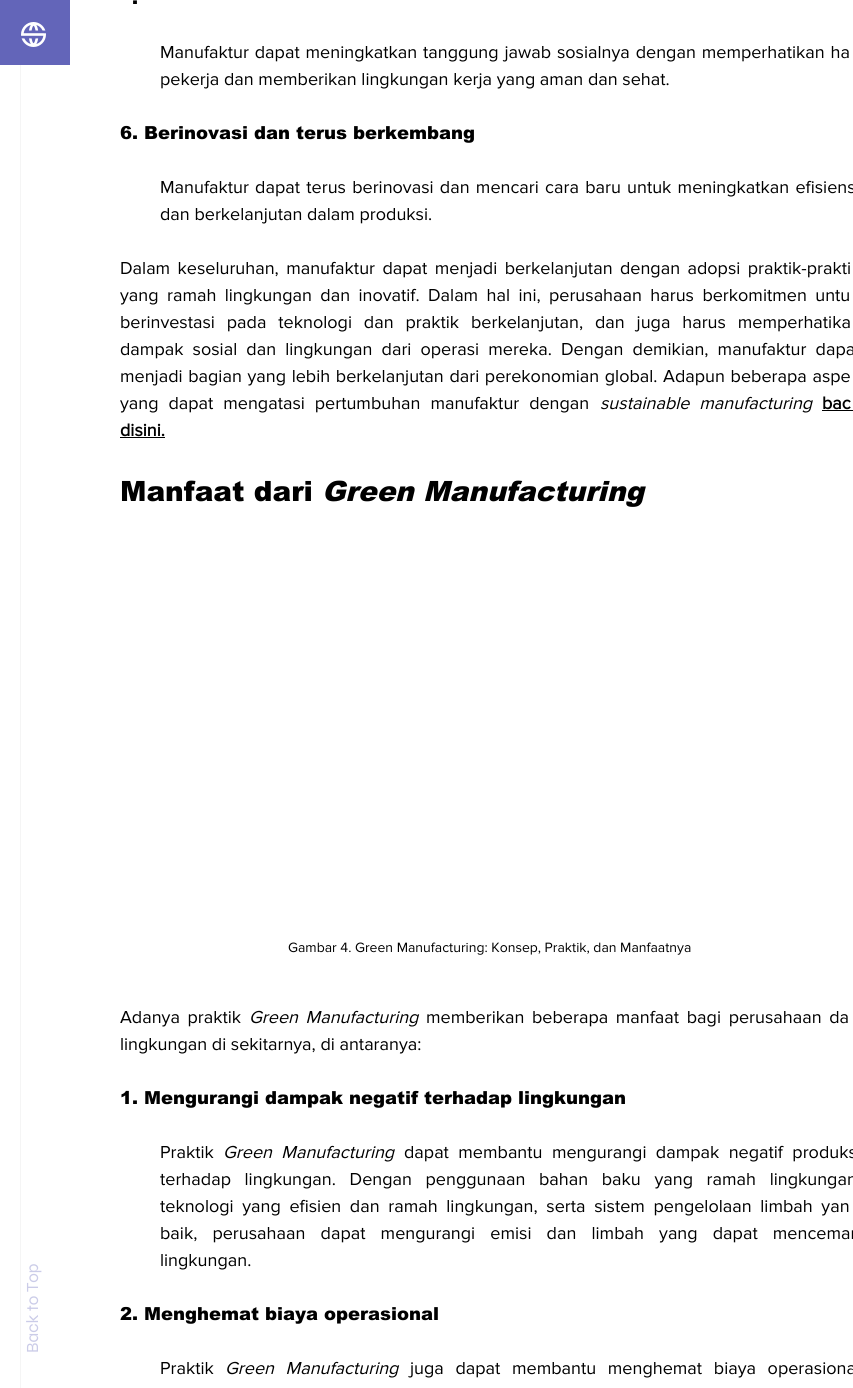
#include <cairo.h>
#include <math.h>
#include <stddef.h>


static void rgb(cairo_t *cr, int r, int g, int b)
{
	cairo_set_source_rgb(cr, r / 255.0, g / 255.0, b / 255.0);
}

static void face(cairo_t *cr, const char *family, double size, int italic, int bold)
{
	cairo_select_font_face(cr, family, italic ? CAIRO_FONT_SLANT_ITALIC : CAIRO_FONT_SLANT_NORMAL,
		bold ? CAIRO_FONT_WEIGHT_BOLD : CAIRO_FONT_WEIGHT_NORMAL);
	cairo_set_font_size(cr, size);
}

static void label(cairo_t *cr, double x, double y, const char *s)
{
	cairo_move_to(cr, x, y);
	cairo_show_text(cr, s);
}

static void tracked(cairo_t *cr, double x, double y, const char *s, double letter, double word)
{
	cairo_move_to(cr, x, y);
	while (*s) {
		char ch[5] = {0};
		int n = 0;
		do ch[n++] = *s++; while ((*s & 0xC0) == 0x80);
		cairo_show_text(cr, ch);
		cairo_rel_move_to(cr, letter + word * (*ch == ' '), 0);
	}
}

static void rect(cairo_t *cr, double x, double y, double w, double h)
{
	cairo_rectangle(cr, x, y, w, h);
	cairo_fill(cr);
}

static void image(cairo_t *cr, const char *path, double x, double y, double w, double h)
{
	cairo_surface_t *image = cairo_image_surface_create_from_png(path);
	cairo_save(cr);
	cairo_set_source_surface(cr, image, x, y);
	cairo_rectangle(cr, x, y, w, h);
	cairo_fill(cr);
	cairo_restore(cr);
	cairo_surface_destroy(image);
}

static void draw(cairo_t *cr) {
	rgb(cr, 255, 255, 255);
	cairo_paint(cr);
	cairo_rectangle(cr, 20.5, -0.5, 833, 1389);
	rgb(cr, 245, 245, 245);
	cairo_set_line_width(cr, 1);
	cairo_stroke(cr);
	rgb(cr, 99, 101, 185);
	rect(cr, 0, 0, 70, 65);
	image(cr, "image0.png", 21, 22, 25, 25);
	face(cr, "arial Black", 18, 0, 0);
	rgb(cr, 0, 0, 0);
	label(cr, 132, 4, ".");
	face(cr, "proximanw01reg", 18, 0, 0);
	tracked(cr, 160, 58, "Manufaktur dapat meningkatkan tanggung jawab sosialnya dengan memperhatikan ha", 0, 1.25);
	label(cr, 160, 85, "pekerja dan memberikan lingkungan kerja yang aman dan sehat.");
	face(cr, "arial Black", 18, 0, 0);
	label(cr, 120, 139, "6. Berinovasi dan terus berkembang");
	face(cr, "proximanw01reg", 18, 0, 0);
	tracked(cr, 160, 193, "Manufaktur dapat terus berinovasi dan mencari cara baru untuk meningkatkan efisiens", 0, 1.6);
	label(cr, 160, 220, "dan berkelanjutan dalam produksi.");
	tracked(cr, 120, 274, "Dalam keseluruhan, manufaktur dapat menjadi berkelanjutan dengan adopsi praktik-prakti", 0, 2.75);
	tracked(cr, 120, 301, "yang ramah lingkungan dan inovatif. Dalam hal ini, perusahaan harus berkomitmen untu", 0, 3.75);
	tracked(cr, 120, 328, "berinvestasi pada teknologi dan praktik berkelanjutan, dan juga harus memperhatika", 0, 7.25);
	tracked(cr, 120, 355, "dampak sosial dan lingkungan dari operasi mereka. Dengan demikian, manufaktur dapa", 0, 4.5);
	tracked(cr, 120, 382, "menjadi bagian yang lebih berkelanjutan dari perekonomian global. Adapun beberapa aspe", 0, 1);
	tracked(cr, 120, 409, "yang dapat mengatasi pertumbuhan manufaktur dengan", 0, 5.25);
	face(cr, "proximanw01reg", 18, 1, 0);
	tracked(cr, 600, 409, "sustainable manufacturing", 0, 5.25);
	face(cr, "proximanw01reg", 18, 0, 1);
	label(cr, 822, 409, "bac");
	rect(cr, 822, 410, 31, 1);
	label(cr, 120, 436, "disini.");
	rect(cr, 120, 437, 45, 1);
	face(cr, "arial Black", 28, 0, 0);
	label(cr, 120, 501, "Manfaat dari");
	face(cr, "arial Black", 28, 1, 0);
	label(cr, 322, 501, "Green Manufacturing");
	face(cr, "proximanw01reg", 14, 0, 0);
	label(cr, 288, 952, "Gambar 4. Green Manufacturing: Konsep, Praktik, dan Manfaatnya");
	face(cr, "proximanw01reg", 18, 0, 0);
	tracked(cr, 120, 1023, "Adanya praktik", 0, 3);
	face(cr, "proximanw01reg", 18, 1, 0);
	tracked(cr, 249, 1023, "Green Manufacturing", 0, 3);
	face(cr, "proximanw01reg", 18, 0, 0);
	tracked(cr, 426, 1023, "memberikan beberapa manfaat bagi perusahaan da", 0, 3);
	label(cr, 120, 1050, "lingkungan di sekitarnya, di antaranya:");
	face(cr, "arial Black", 18, 0, 0);
	label(cr, 120, 1104, "1. Mengurangi dampak negatif terhadap lingkungan");
	face(cr, "proximanw01reg", 18, 0, 0);
	label(cr, 160, 1158, "Praktik");
	face(cr, "proximanw01reg", 18, 1, 0);
	tracked(cr, 223, 1158, "Green Manufacturing", 0, 4.75);
	face(cr, "proximanw01reg", 18, 0, 0);
	tracked(cr, 404, 1158, "dapat membantu mengurangi dampak negatif produks", 0, 4.75);
	tracked(cr, 160, 1185, "terhadap lingkungan. Dengan penggunaan bahan baku yang ramah lingkungan", 0, 9);
	tracked(cr, 160, 1212, "teknologi yang efisien dan ramah lingkungan, serta sistem pengelolaan limbah yan", 0, 4);
	tracked(cr, 160, 1239, "baik, perusahaan dapat mengurangi emisi dan limbah yang dapat mencemar", 0, 10.5);
	label(cr, 160, 1266, "lingkungan.");
	face(cr, "arial Black", 18, 0, 0);
	label(cr, 120, 1320, "2. Menghemat biaya operasional");
	face(cr, "proximanw01reg", 18, 0, 0);
	label(cr, 160, 1374, "Praktik");
	face(cr, "proximanw01reg", 18, 1, 0);
	tracked(cr, 225, 1374, "Green Manufacturing", 0, 7);
	face(cr, "proximanw01reg", 18, 0, 0);
	tracked(cr, 410, 1374, "juga dapat membantu menghemat biaya operasiona", 0, 7);
	face(cr, "Syne", 17, 0, 0);
	rgb(cr, 203, 204, 232);
	cairo_save(cr);
	cairo_translate(cr, 38, 1353);
	cairo_rotate(cr, -90 * M_PI / 180);
	label(cr, 0, 0, "Back to Top");
	cairo_restore(cr);
}

int main(void) {
	cairo_surface_t *surface = cairo_image_surface_create(CAIRO_FORMAT_RGB24, 853, 1388);
	cairo_t *cr = cairo_create(surface);
	cairo_font_options_t *options = cairo_font_options_create();
	cairo_font_options_set_hint_metrics(options, CAIRO_HINT_METRICS_OFF);
	cairo_font_options_set_hint_style(options, CAIRO_HINT_STYLE_NONE);
	cairo_set_font_options(cr, options);
	cairo_set_miter_limit(cr, 4);
	draw(cr);
	cairo_surface_write_to_png(surface, "render.png");
	cairo_font_options_destroy(options);
	cairo_destroy(cr);
	cairo_surface_destroy(surface);
	return 0;
}
